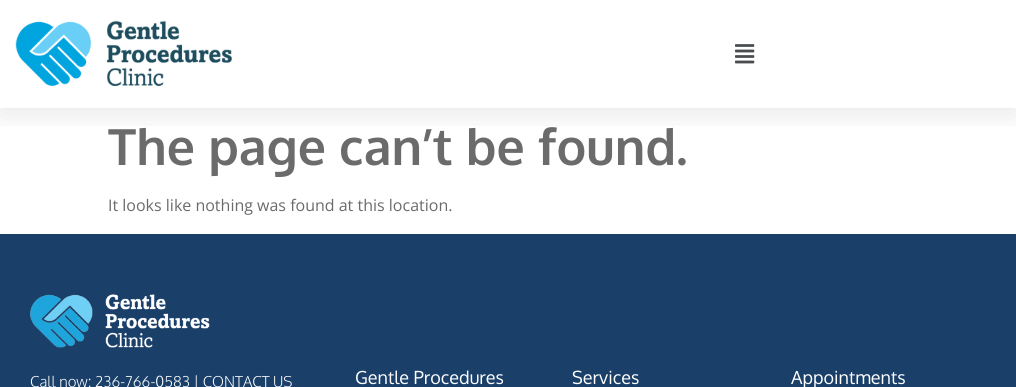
#include <cairo.h>
#include <math.h>
#include <stddef.h>


static void rgb(cairo_t *cr, int r, int g, int b)
{
	cairo_set_source_rgb(cr, r / 255.0, g / 255.0, b / 255.0);
}

static void face(cairo_t *cr, const char *family, double size, int italic, int bold)
{
	cairo_select_font_face(cr, family, italic ? CAIRO_FONT_SLANT_ITALIC : CAIRO_FONT_SLANT_NORMAL,
		bold ? CAIRO_FONT_WEIGHT_BOLD : CAIRO_FONT_WEIGHT_NORMAL);
	cairo_set_font_size(cr, size);
}

static void label(cairo_t *cr, double x, double y, const char *s)
{
	cairo_move_to(cr, x, y);
	cairo_show_text(cr, s);
}

static void rect(cairo_t *cr, double x, double y, double w, double h)
{
	cairo_rectangle(cr, x, y, w, h);
	cairo_fill(cr);
}

static void rrect(cairo_t *cr, double x, double y, double w, double h, double r)
{
	cairo_new_sub_path(cr);
	cairo_arc(cr, x + w - r, y + h - r, r, 0, M_PI / 2);
	cairo_arc(cr, x + r, y + h - r, r, M_PI / 2, M_PI);
	cairo_arc(cr, x + r, y + r, r, M_PI, 1.5 * M_PI);
	cairo_arc(cr, x + w - r, y + r, r, 1.5 * M_PI, 2 * M_PI);
	cairo_close_path(cr);
}

static void soft_shadow(cairo_t *cr, double x, double y, double w, double h, double r, double blur, double alpha)
{
	cairo_push_group_with_content(cr, CAIRO_CONTENT_ALPHA);
	cairo_set_operator(cr, CAIRO_OPERATOR_SOURCE);
	for (int i = 15; i >= -15 && fmin(w, h) + blur * i / 3 > 0; i -= 2) {
		double e = blur * i / 6;
		cairo_set_source_rgba(cr, 0, 0, 0, alpha * erfc((i - 1) / 8.5) / 2);
		rrect(cr, x - e, y - e, w + 2 * e, h + 2 * e, fmax(0, fmin(r + e + blur * .6, fmin(w, h) / 2 + e)));
		cairo_fill(cr);
	}
	cairo_pattern_t *soft = cairo_pop_group(cr);
	cairo_mask(cr, soft);
	cairo_pattern_destroy(soft);
}

static void image(cairo_t *cr, const char *path, double x, double y, double w, double h)
{
	cairo_surface_t *image = cairo_image_surface_create_from_png(path);
	cairo_save(cr);
	cairo_set_source_surface(cr, image, x, y);
	cairo_rectangle(cr, x, y, w, h);
	cairo_fill(cr);
	cairo_restore(cr);
	cairo_surface_destroy(image);
}

static void draw(cairo_t *cr) {
	rgb(cr, 255, 255, 255);
	cairo_paint(cr);
	cairo_save(cr);
	cairo_rectangle(cr, 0, 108, 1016, 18);
	cairo_clip(cr);
	rgb(cr, 0, 0, 0);
	soft_shadow(cr, 0, 5, 1016, 108, 0, 15, 0.1);
	cairo_restore(cr);
	image(cr, "image0.png", 15, 20, 217, 66);
	image(cr, "image1.png", 735, 44, 20, 20);
	face(cr, "Oxygen", 50, 0, 1);
	rgb(cr, 107, 107, 108);
	label(cr, 108, 165, "The page can’t be found.");
	face(cr, "Open Sans", 16, 0, 0);
	label(cr, 108, 211, "It looks like nothing was found at this location.");
	rgb(cr, 26, 64, 106);
	rect(cr, 0, 234, 1016, 153);
	image(cr, "image2.png", 30, 294, 180, 54);
	face(cr, "Oxygen Light", 15, 0, 0);
	rgb(cr, 255, 255, 255);
	label(cr, 30, 387, "Call now: 236-766-0583 | CONTACT US");
	face(cr, "Oxygen", 18, 0, 0);
	label(cr, 355, 384, "Gentle Procedures");
	label(cr, 572, 384, "Services");
	label(cr, 791, 384, "Appointments");
}

int main(void) {
	cairo_surface_t *surface = cairo_image_surface_create(CAIRO_FORMAT_RGB24, 1016, 387);
	cairo_t *cr = cairo_create(surface);
	cairo_font_options_t *options = cairo_font_options_create();
	cairo_font_options_set_hint_metrics(options, CAIRO_HINT_METRICS_OFF);
	cairo_font_options_set_hint_style(options, CAIRO_HINT_STYLE_NONE);
	cairo_set_font_options(cr, options);
	cairo_set_miter_limit(cr, 4);
	draw(cr);
	cairo_surface_write_to_png(surface, "render.png");
	cairo_font_options_destroy(options);
	cairo_destroy(cr);
	cairo_surface_destroy(surface);
	return 0;
}
